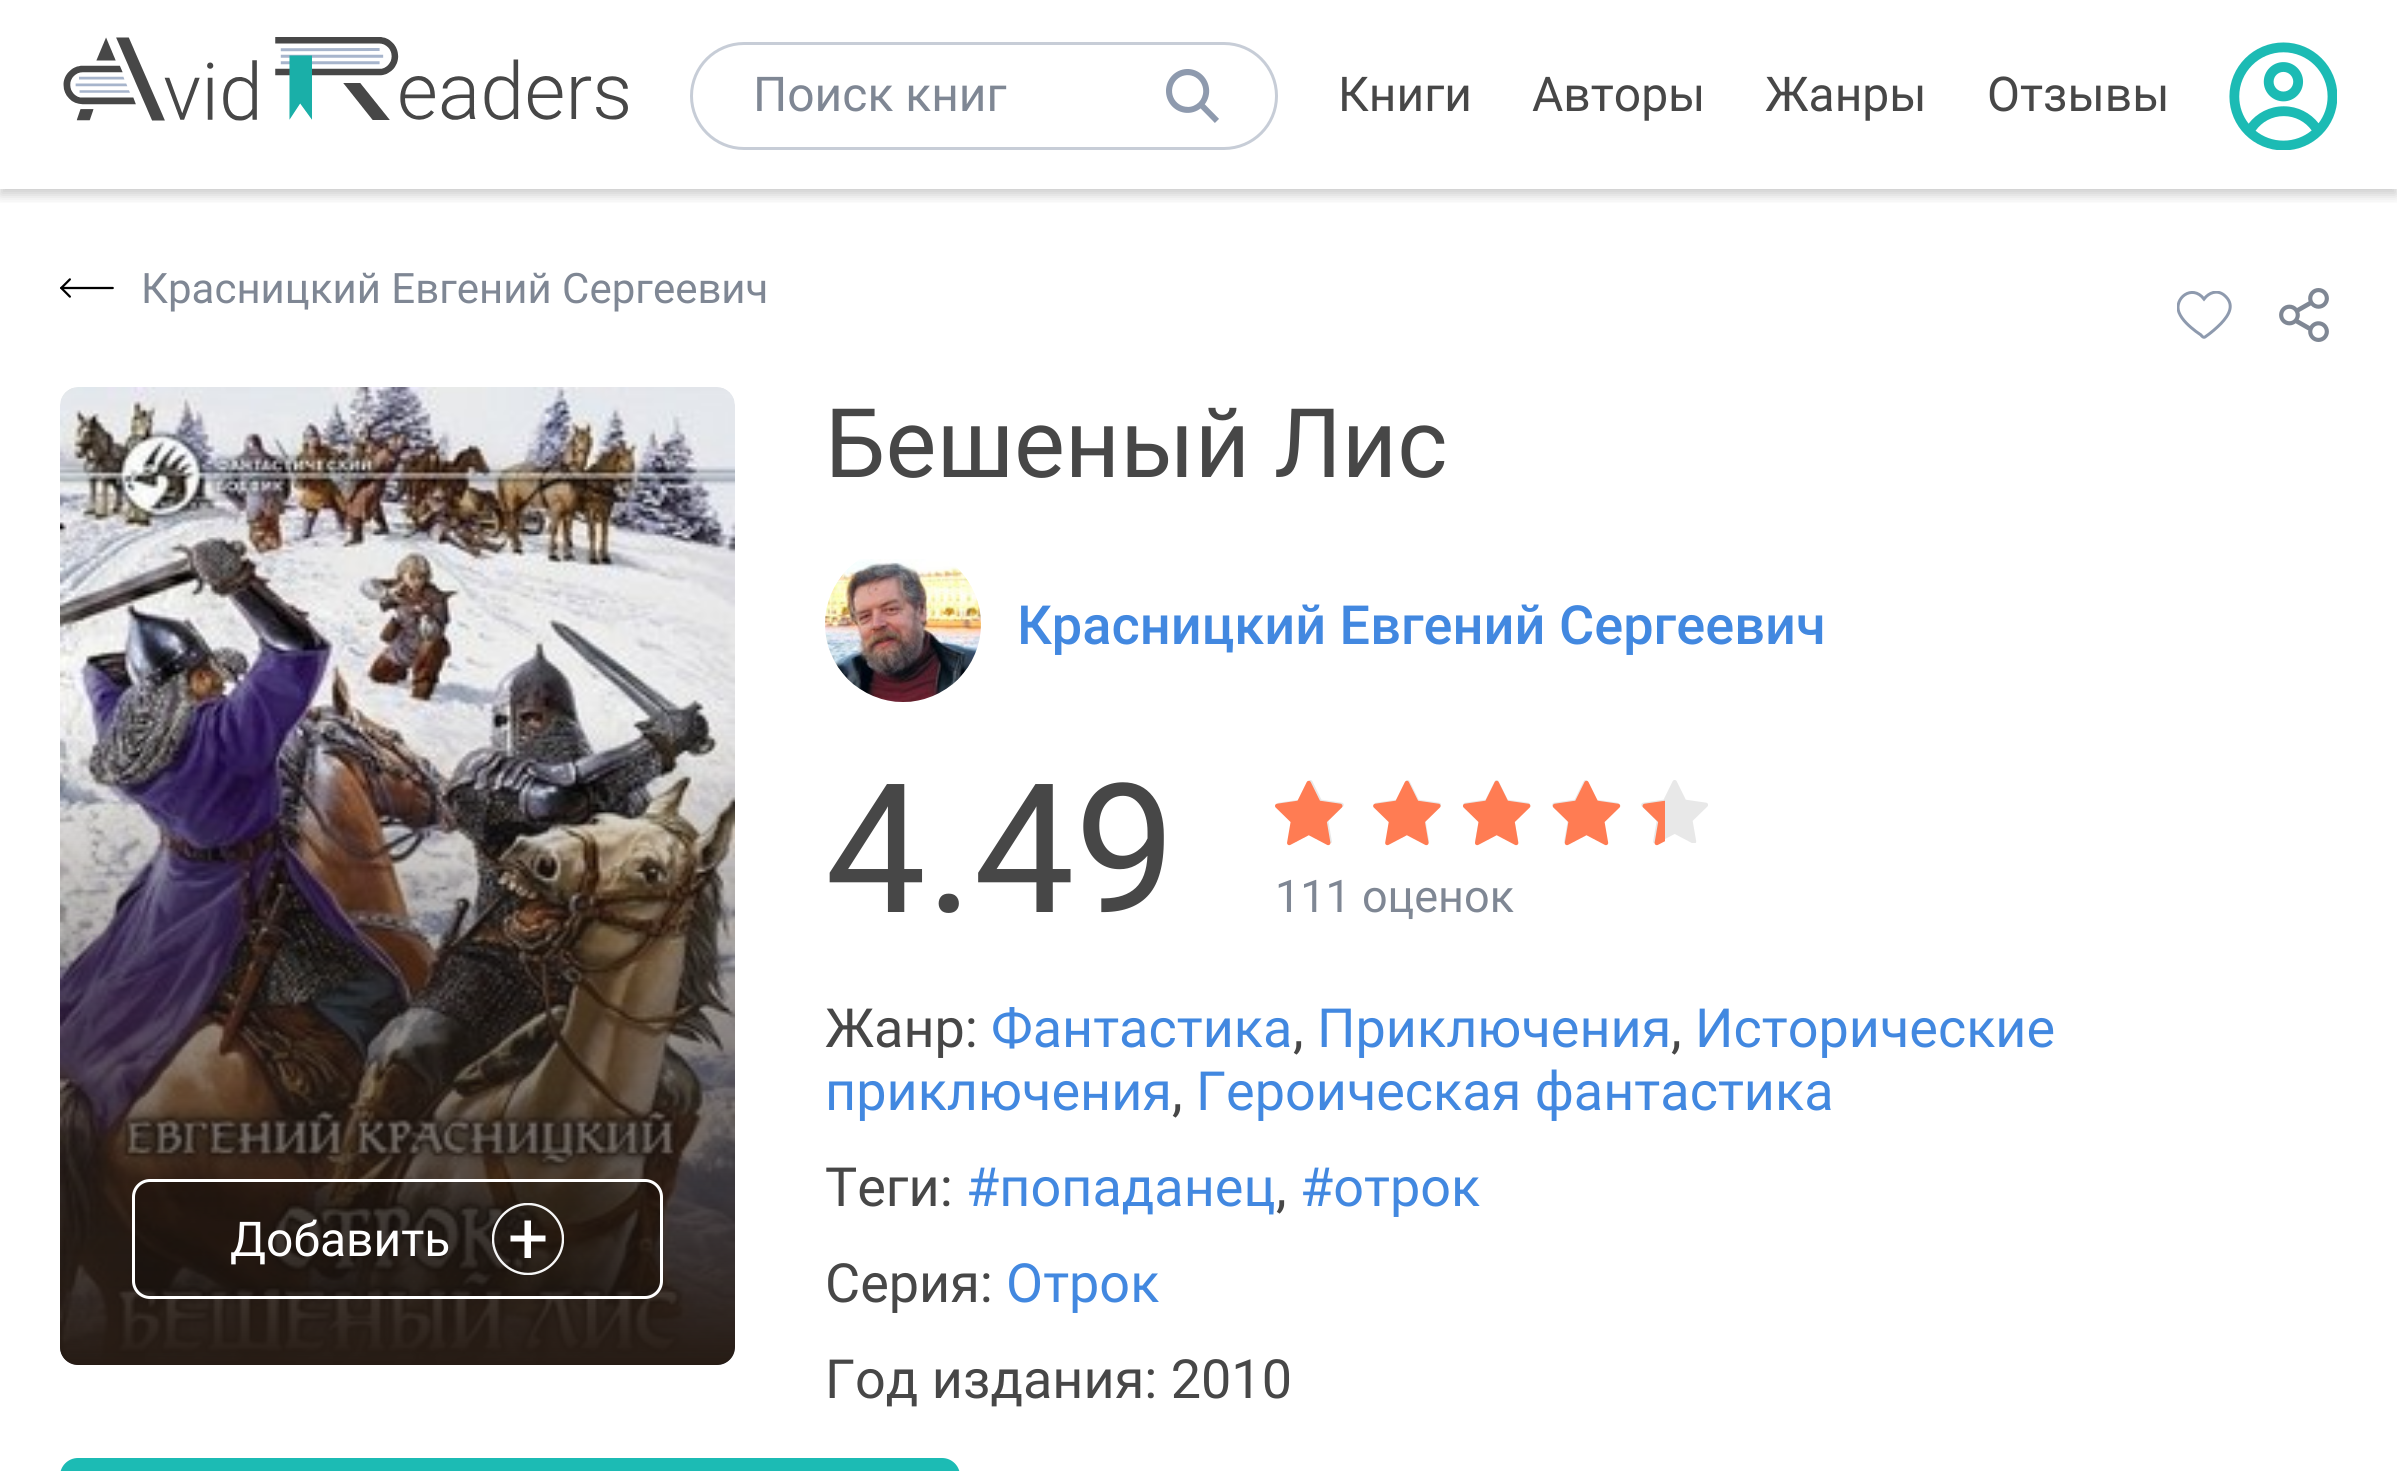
#include <cairo.h>
#include <math.h>
#include <stddef.h>


static void rgb(cairo_t *cr, int r, int g, int b)
{
	cairo_set_source_rgb(cr, r / 255.0, g / 255.0, b / 255.0);
}

static void face(cairo_t *cr, const char *family, double size, int italic, int bold)
{
	cairo_select_font_face(cr, family, italic ? CAIRO_FONT_SLANT_ITALIC : CAIRO_FONT_SLANT_NORMAL,
		bold ? CAIRO_FONT_WEIGHT_BOLD : CAIRO_FONT_WEIGHT_NORMAL);
	cairo_set_font_size(cr, size);
}

static void label(cairo_t *cr, double x, double y, const char *s)
{
	cairo_move_to(cr, x, y);
	cairo_show_text(cr, s);
}

static void rrect(cairo_t *cr, double x, double y, double w, double h, double r)
{
	cairo_new_sub_path(cr);
	cairo_arc(cr, x + w - r, y + h - r, r, 0, M_PI / 2);
	cairo_arc(cr, x + r, y + h - r, r, M_PI / 2, M_PI);
	cairo_arc(cr, x + r, y + r, r, M_PI, 1.5 * M_PI);
	cairo_arc(cr, x + w - r, y + r, r, 1.5 * M_PI, 2 * M_PI);
	cairo_close_path(cr);
}

static void soft_shadow(cairo_t *cr, double x, double y, double w, double h, double r, double blur, double alpha)
{
	cairo_push_group_with_content(cr, CAIRO_CONTENT_ALPHA);
	cairo_set_operator(cr, CAIRO_OPERATOR_SOURCE);
	for (int i = 15; i >= -15 && fmin(w, h) + blur * i / 3 > 0; i -= 2) {
		double e = blur * i / 6;
		cairo_set_source_rgba(cr, 0, 0, 0, alpha * erfc((i - 1) / 8.5) / 2);
		rrect(cr, x - e, y - e, w + 2 * e, h + 2 * e, fmax(0, fmin(r + e + blur * .6, fmin(w, h) / 2 + e)));
		cairo_fill(cr);
	}
	cairo_pattern_t *soft = cairo_pop_group(cr);
	cairo_mask(cr, soft);
	cairo_pattern_destroy(soft);
}

static void image(cairo_t *cr, const char *path, double x, double y, double w, double h)
{
	cairo_surface_t *image = cairo_image_surface_create_from_png(path);
	cairo_save(cr);
	cairo_set_source_surface(cr, image, x, y);
	cairo_rectangle(cr, x, y, w, h);
	cairo_fill(cr);
	cairo_restore(cr);
	cairo_surface_destroy(image);
}

static void draw(cairo_t *cr) {
	cairo_pattern_t *gradient;
	rgb(cr, 255, 255, 255);
	cairo_paint(cr);
	cairo_save(cr);
	cairo_rectangle(cr, 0, 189, 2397, 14);
	cairo_clip(cr);
	rgb(cr, 0, 0, 0);
	soft_shadow(cr, 0, 6, 2397, 189, 0, 6, 0.2);
	cairo_restore(cr);
	image(cr, "image0.png", 63, 37, 565, 84);
	rrect(cr, 691.5, 43.5, 585, 105, 52.5);
	rgb(cr, 199, 205, 215);
	cairo_set_line_width(cr, 3);
	cairo_stroke(cr);
	face(cr, "Roboto", 48, 0, 0);
	rgb(cr, 127, 135, 148);
	label(cr, 753, 111, "Поиск книг");
	image(cr, "image1.png", 1166, 69, 53, 54);
	rgb(cr, 71, 71, 71);
	label(cr, 1338, 111, "Книги");
	label(cr, 1532, 111, "Авторы");
	label(cr, 1765, 111, "Жанры");
	label(cr, 1987, 111, "Отзывы");
	image(cr, "image2.png", 2229, 42, 108, 108);
	image(cr, "image3.png", 60, 278, 54, 20);
	face(cr, "Roboto", 42, 0, 0);
	rgb(cr, 127, 135, 148);
	label(cr, 141, 303, "Красницкий Евгений Сергеевич");
	cairo_save(cr);
	cairo_rectangle(cr, 2177, 291, 55, 48);
	cairo_clip(cr);
	cairo_new_path(cr);
	cairo_move_to(cr, 2224, 295);
	cairo_curve_to(cr, 2235.5, 304.5, 2229, 315, 2221, 323.5);
	cairo_curve_to(cr, 2216.5, 328, 2211.5, 332.5, 2205, 337);
	cairo_curve_to(cr, 2203.5, 338, 2201.5, 336, 2201, 335);
	cairo_line_to(cr, 2196, 331.5);
	cairo_curve_to(cr, 2189.5, 326.5, 2182, 320, 2179, 312.5);
	cairo_curve_to(cr, 2173.5, 298.5, 2192, 283.5, 2204, 299);
	cairo_curve_to(cr, 2209, 292.5, 2217, 289.5, 2224, 295);
	cairo_close_path(cr);
	rgb(cr, 142, 154, 174);
	cairo_stroke(cr);
	cairo_restore(cr);
	image(cr, "image4.png", 2279, 288, 50, 54);
	image(cr, "image5.png", 60, 387, 675, 978);
	gradient = cairo_pattern_create_linear(398, 1365, 397, 711);
	cairo_pattern_add_color_stop_rgba(gradient, 0, 0.149, 0.106, 0.078, 1);
	cairo_pattern_add_color_stop_rgba(gradient, 1, 0.149, 0.106, 0.078, 0);
	cairo_set_source(cr, gradient);
	cairo_pattern_destroy(gradient);
	cairo_new_path(cr);
	cairo_move_to(cr, 60, 711);
	cairo_line_to(cr, 735, 711);
	cairo_line_to(cr, 735, 1347);
	cairo_curve_to(cr, 735, 1357, 727, 1365, 717, 1365);
	cairo_line_to(cr, 78, 1365);
	cairo_curve_to(cr, 68, 1365, 60, 1357, 60, 1347);
	cairo_close_path(cr);
	cairo_fill(cr);
	cairo_set_source_rgba(cr, 0, 0, 0, 0.25);
	rrect(cr, 133.5, 1180.5, 528, 117, 16.5);
	cairo_fill_preserve(cr);
	rgb(cr, 255, 255, 255);
	cairo_stroke(cr);
	face(cr, "Roboto", 48, 0, 0);
	label(cr, 230, 1256, "Добавить");
	cairo_new_path(cr);
	cairo_move_to(cr, 545.5, 1235.5);
	cairo_line_to(cr, 545.5, 1241.5);
	cairo_line_to(cr, 510.5, 1241.5);
	cairo_line_to(cr, 510.5, 1235.5);
	cairo_close_path(cr);
	cairo_move_to(cr, 531, 1220.5);
	cairo_line_to(cr, 531, 1258);
	cairo_line_to(cr, 524.5, 1258);
	cairo_line_to(cr, 524.5, 1220.5);
	cairo_close_path(cr);
	cairo_fill(cr);
	cairo_save(cr);
	cairo_rectangle(cr, 492, 1203, 72, 72);
	cairo_clip(cr);
	cairo_new_path(cr);
	cairo_move_to(cr, 528, 1204);
	cairo_curve_to(cr, 547, 1204, 563, 1220, 563, 1239);
	cairo_curve_to(cr, 563, 1258, 547, 1274, 528, 1274);
	cairo_curve_to(cr, 509, 1274, 493, 1258, 493, 1239);
	cairo_curve_to(cr, 493, 1220, 509, 1204, 528, 1204);
	cairo_close_path(cr);
	rgb(cr, 246, 246, 246);
	cairo_set_line_width(cr, 2.4);
	cairo_stroke(cr);
	cairo_restore(cr);
	face(cr, "Roboto", 96, 0, 0);
	rgb(cr, 71, 71, 71);
	label(cr, 825, 477, "Бешеный Лис");
	image(cr, "image6.png", 825, 559, 156, 143);
	face(cr, "Roboto Medium", 54, 0, 0);
	rgb(cr, 66, 136, 224);
	label(cr, 1017, 644, "Красницкий Евгений Сергеевич");
	face(cr, "Roboto", 180, 0, 0);
	rgb(cr, 71, 71, 71);
	label(cr, 825, 912, "4.49");
	image(cr, "image7.png", 1277, 780, 431, 63);
	image(cr, "image8.png", 1275, 780, 390, 66);
	face(cr, "Roboto", 45, 0, 0);
	rgb(cr, 127, 135, 148);
	label(cr, 1275, 912, "111 оценок");
	face(cr, "Roboto", 54, 0, 0);
	rgb(cr, 71, 71, 71);
	label(cr, 825, 1047, "Жанр:");
	rgb(cr, 66, 136, 224);
	label(cr, 991, 1047, "Фантастика");
	rgb(cr, 71, 71, 71);
	label(cr, 1293, 1047, ",");
	rgb(cr, 66, 136, 224);
	label(cr, 1317, 1047, "Приключения");
	rgb(cr, 71, 71, 71);
	label(cr, 1671, 1047, ",");
	rgb(cr, 66, 136, 224);
	label(cr, 1695, 1047, "Исторические");
	label(cr, 825, 1110, "приключения");
	rgb(cr, 71, 71, 71);
	label(cr, 1172, 1110, ",");
	rgb(cr, 66, 136, 224);
	label(cr, 1196, 1110, "Героическая фантастика");
	rgb(cr, 71, 71, 71);
	label(cr, 825, 1206, "Теги:");
	rgb(cr, 66, 136, 224);
	label(cr, 966, 1206, "#попаданец");
	rgb(cr, 71, 71, 71);
	label(cr, 1276, 1206, ",");
	rgb(cr, 66, 136, 224);
	label(cr, 1300, 1206, "#отрок");
	rgb(cr, 71, 71, 71);
	label(cr, 825, 1302, "Серия:");
	rgb(cr, 66, 136, 224);
	label(cr, 1006, 1302, "Отрок");
	rgb(cr, 71, 71, 71);
	label(cr, 825, 1398, "Год издания: 2010");
	rgb(cr, 28, 187, 180);
	rrect(cr, 60, 1458, 900, 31, 18);
	cairo_fill(cr);
}

int main(void) {
	cairo_surface_t *surface = cairo_image_surface_create(CAIRO_FORMAT_RGB24, 2397, 1471);
	cairo_t *cr = cairo_create(surface);
	cairo_font_options_t *options = cairo_font_options_create();
	cairo_font_options_set_hint_metrics(options, CAIRO_HINT_METRICS_OFF);
	cairo_font_options_set_hint_style(options, CAIRO_HINT_STYLE_NONE);
	cairo_set_font_options(cr, options);
	cairo_set_miter_limit(cr, 4);
	draw(cr);
	cairo_surface_write_to_png(surface, "render.png");
	cairo_font_options_destroy(options);
	cairo_destroy(cr);
	cairo_surface_destroy(surface);
	return 0;
}
